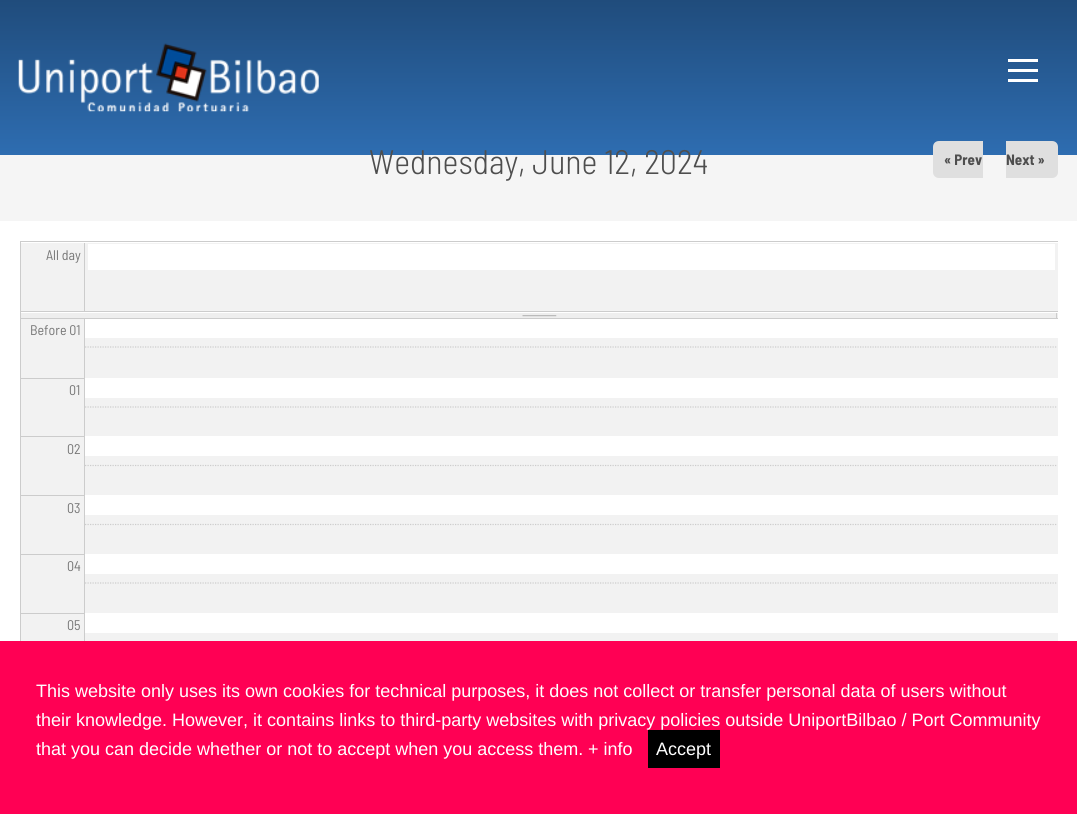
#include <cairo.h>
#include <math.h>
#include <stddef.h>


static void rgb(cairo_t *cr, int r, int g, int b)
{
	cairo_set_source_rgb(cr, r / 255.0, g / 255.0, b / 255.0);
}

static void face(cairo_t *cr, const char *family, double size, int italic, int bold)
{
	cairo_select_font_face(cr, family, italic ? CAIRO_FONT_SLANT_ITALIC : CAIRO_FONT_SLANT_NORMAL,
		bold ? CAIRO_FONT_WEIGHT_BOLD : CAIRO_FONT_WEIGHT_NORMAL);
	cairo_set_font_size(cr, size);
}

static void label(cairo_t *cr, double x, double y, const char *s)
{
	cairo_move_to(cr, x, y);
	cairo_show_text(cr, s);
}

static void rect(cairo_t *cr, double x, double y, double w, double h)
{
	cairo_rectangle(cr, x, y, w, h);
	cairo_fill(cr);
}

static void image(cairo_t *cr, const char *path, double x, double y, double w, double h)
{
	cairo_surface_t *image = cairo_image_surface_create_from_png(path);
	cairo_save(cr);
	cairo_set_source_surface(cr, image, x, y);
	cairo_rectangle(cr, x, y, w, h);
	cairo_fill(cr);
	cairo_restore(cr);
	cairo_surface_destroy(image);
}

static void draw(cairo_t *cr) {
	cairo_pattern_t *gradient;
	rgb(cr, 255, 255, 255);
	cairo_paint(cr);
	gradient = cairo_pattern_create_linear(539, 0, 539, 155);
	cairo_pattern_add_color_stop_rgba(gradient, 0, 0.125, 0.298, 0.486, 1);
	cairo_pattern_add_color_stop_rgba(gradient, 1, 0.18, 0.427, 0.694, 1);
	cairo_set_source(cr, gradient);
	cairo_pattern_destroy(gradient);
	rect(cr, 0, 0, 1077, 155);
	rgb(cr, 255, 255, 255);
	rect(cr, 1008, 69, 30, 3);
	rect(cr, 1008, 59, 30, 3);
	rect(cr, 1008, 79, 30, 3);
	image(cr, "image0.png", 18, 43, 301, 69);
	rgb(cr, 245, 245, 245);
	rect(cr, 0, 155, 1077, 66);
	face(cr, "Barlow Semi Condensed Light", 34, 0, 0);
	rgb(cr, 78, 78, 78);
	label(cr, 369, 174, "Wednesday, June 12, 2024");
	rgb(cr, 223, 223, 223);
	cairo_new_path(cr);
	cairo_move_to(cr, 939, 141);
	cairo_line_to(cr, 983, 141);
	cairo_line_to(cr, 983, 178);
	cairo_line_to(cr, 939, 178);
	cairo_curve_to(cr, 935.5, 178, 933, 175.5, 933, 172);
	cairo_line_to(cr, 933, 147);
	cairo_curve_to(cr, 933, 143.5, 935.5, 141, 939, 141);
	cairo_close_path(cr);
	cairo_fill(cr);
	face(cr, "Barlow Semi Condensed", 15, 0, 1);
	rgb(cr, 78, 78, 78);
	label(cr, 944, 165, "« Prev");
	rgb(cr, 223, 223, 223);
	cairo_new_path(cr);
	cairo_move_to(cr, 1006, 141);
	cairo_line_to(cr, 1052, 141);
	cairo_curve_to(cr, 1055.5, 141, 1058, 143.5, 1058, 147);
	cairo_line_to(cr, 1058, 172);
	cairo_curve_to(cr, 1058, 175.5, 1055.5, 178, 1052, 178);
	cairo_line_to(cr, 1006, 178);
	cairo_close_path(cr);
	cairo_fill(cr);
	rgb(cr, 78, 78, 78);
	label(cr, 1006, 165, "Next »");
	rgb(cr, 204, 204, 204);
	rect(cr, 20, 241, 1038, 1);
	rect(cr, 20, 311, 1038, 1);
	rect(cr, 20, 241, 1, 72);
	rgb(cr, 242, 242, 242);
	rect(cr, 21, 243, 1037, 68);
	face(cr, "Barlow Semi Condensed", 14, 0, 0);
	rgb(cr, 119, 119, 119);
	label(cr, 46, 260, "All day");
	rgb(cr, 204, 204, 204);
	rect(cr, 84, 243, 1, 68);
	rgb(cr, 255, 255, 255);
	rect(cr, 88, 244, 967, 26);
	rgb(cr, 238, 238, 238);
	rect(cr, 20, 313, 1038, 5);
	rgb(cr, 204, 204, 204);
	rect(cr, 1056, 313, 1, 5);
	rect(cr, 20, 313, 1, 5);
	image(cr, "image1.png", 522, 315, 35, 2);
	rect(cr, 20, 318, 1038, 1);
	rect(cr, 20, 318, 1, 323);
	rgb(cr, 242, 242, 242);
	rect(cr, 21, 319, 1037, 322);
	rgb(cr, 119, 119, 119);
	label(cr, 30, 335, "Before 01");
	rgb(cr, 204, 204, 204);
	rect(cr, 21, 378, 63, 1);
	rgb(cr, 119, 119, 119);
	label(cr, 69, 395, "01");
	rgb(cr, 204, 204, 204);
	rect(cr, 21, 436, 63, 1);
	rgb(cr, 119, 119, 119);
	label(cr, 67, 454, "02");
	rgb(cr, 204, 204, 204);
	rect(cr, 21, 495, 63, 1);
	rgb(cr, 119, 119, 119);
	label(cr, 67, 513, "03");
	rgb(cr, 204, 204, 204);
	rect(cr, 21, 554, 63, 1);
	rgb(cr, 119, 119, 119);
	label(cr, 67, 571, "04");
	rgb(cr, 204, 204, 204);
	rect(cr, 21, 613, 63, 1);
	rgb(cr, 119, 119, 119);
	label(cr, 67, 630, "05");
	rgb(cr, 204, 204, 204);
	rect(cr, 84, 319, 1, 322);
	rgb(cr, 255, 255, 255);
	rect(cr, 85, 319, 973, 19);
	cairo_new_path(cr);
	cairo_move_to(cr, 85, 347);
	cairo_line_to(cr, 1057.5, 347);
	rgb(cr, 204, 204, 204);
	cairo_set_line_width(cr, 1.2);
	cairo_set_dash(cr, (double[]){1.25, 1.25}, 2, 0);
	cairo_stroke(cr);
	rgb(cr, 255, 255, 255);
	rect(cr, 85, 378, 973, 20);
	cairo_new_path(cr);
	cairo_move_to(cr, 85, 407);
	cairo_line_to(cr, 1057.5, 407);
	rgb(cr, 204, 204, 204);
	cairo_stroke(cr);
	rgb(cr, 255, 255, 255);
	rect(cr, 85, 436, 973, 20);
	cairo_new_path(cr);
	cairo_move_to(cr, 85, 465.5);
	cairo_line_to(cr, 1057.5, 465.5);
	rgb(cr, 204, 204, 204);
	cairo_stroke(cr);
	rgb(cr, 255, 255, 255);
	rect(cr, 85, 495, 973, 20);
	cairo_new_path(cr);
	cairo_move_to(cr, 85, 524.5);
	cairo_line_to(cr, 1057.5, 524.5);
	rgb(cr, 204, 204, 204);
	cairo_stroke(cr);
	rgb(cr, 255, 255, 255);
	rect(cr, 85, 554, 973, 20);
	cairo_new_path(cr);
	cairo_move_to(cr, 85, 583);
	cairo_line_to(cr, 1057.5, 583);
	rgb(cr, 204, 204, 204);
	cairo_stroke(cr);
	rgb(cr, 255, 255, 255);
	rect(cr, 85, 613, 973, 20);
	rgb(cr, 255, 0, 84);
	rect(cr, 0, 641, 1077, 173);
	face(cr, "Liberation Sans", 18, 0, 0);
	rgb(cr, 255, 255, 255);
	label(cr, 36, 697, "This website only uses its own cookies for technical purposes, it does not collect or transfer personal data of users without");
	label(cr, 36, 726, "their knowledge. However, it contains links to third-party websites with privacy policies outside UniportBilbao / Port Community");
	label(cr, 36, 755, "that you can decide whether or not to accept when you access them.");
	label(cr, 588, 755, "+ info");
	rgb(cr, 0, 0, 0);
	rect(cr, 648, 730, 72, 38);
	rgb(cr, 255, 255, 255);
	label(cr, 656, 755, "Accept");
}

int main(void) {
	cairo_surface_t *surface = cairo_image_surface_create(CAIRO_FORMAT_RGB24, 1077, 814);
	cairo_t *cr = cairo_create(surface);
	cairo_font_options_t *options = cairo_font_options_create();
	cairo_font_options_set_hint_metrics(options, CAIRO_HINT_METRICS_OFF);
	cairo_font_options_set_hint_style(options, CAIRO_HINT_STYLE_NONE);
	cairo_set_font_options(cr, options);
	cairo_set_miter_limit(cr, 4);
	draw(cr);
	cairo_surface_write_to_png(surface, "render.png");
	cairo_font_options_destroy(options);
	cairo_destroy(cr);
	cairo_surface_destroy(surface);
	return 0;
}
